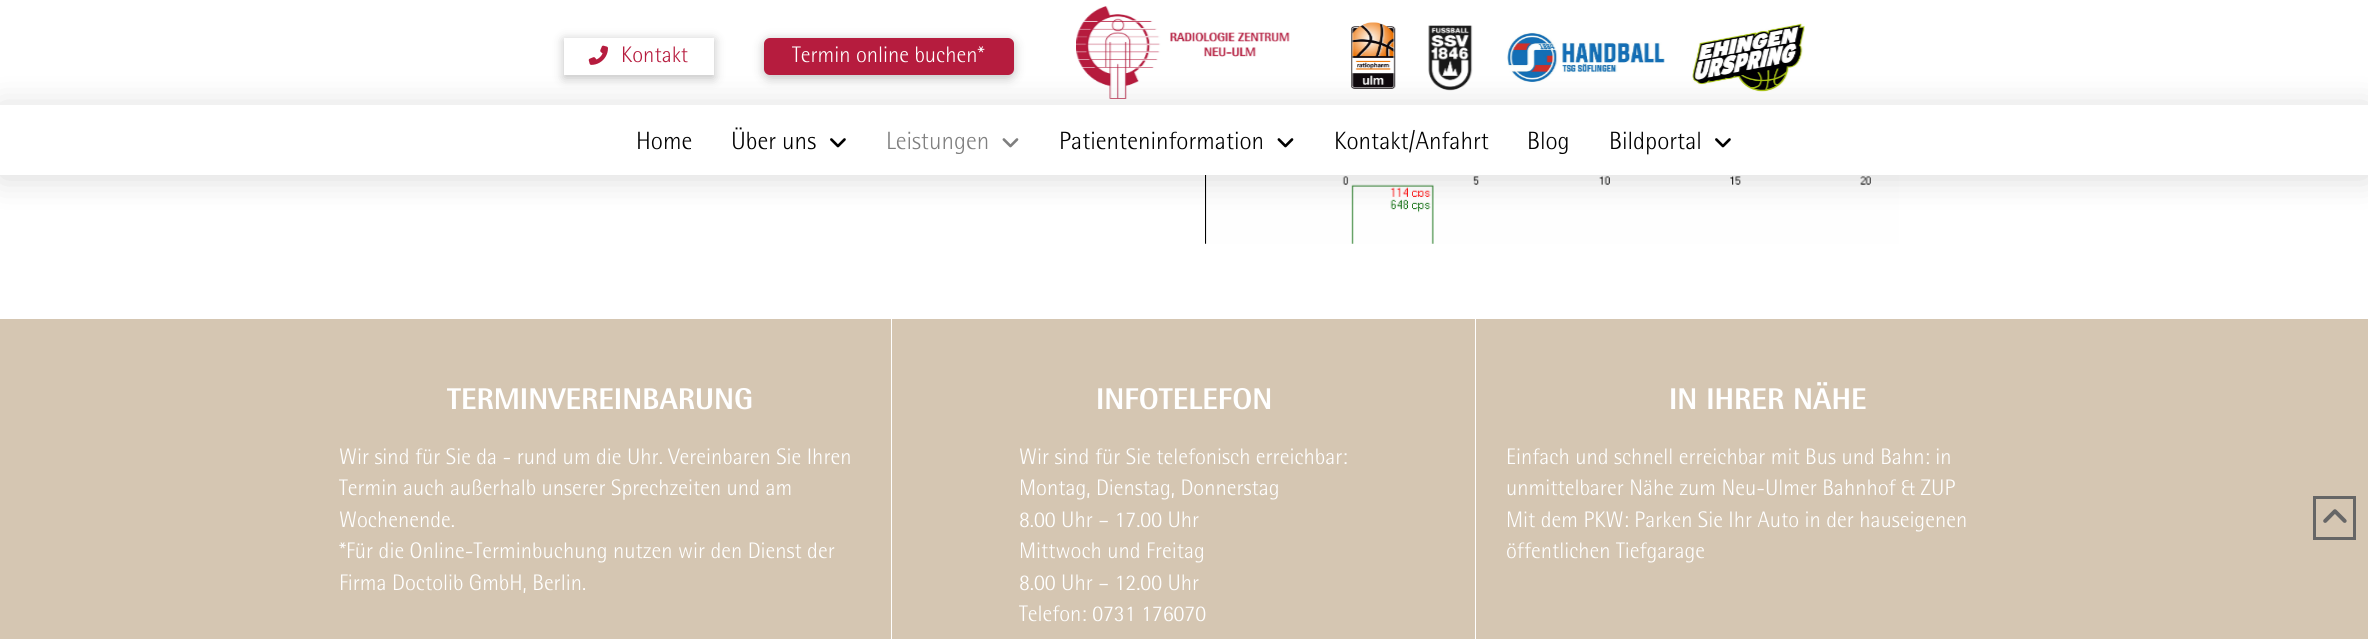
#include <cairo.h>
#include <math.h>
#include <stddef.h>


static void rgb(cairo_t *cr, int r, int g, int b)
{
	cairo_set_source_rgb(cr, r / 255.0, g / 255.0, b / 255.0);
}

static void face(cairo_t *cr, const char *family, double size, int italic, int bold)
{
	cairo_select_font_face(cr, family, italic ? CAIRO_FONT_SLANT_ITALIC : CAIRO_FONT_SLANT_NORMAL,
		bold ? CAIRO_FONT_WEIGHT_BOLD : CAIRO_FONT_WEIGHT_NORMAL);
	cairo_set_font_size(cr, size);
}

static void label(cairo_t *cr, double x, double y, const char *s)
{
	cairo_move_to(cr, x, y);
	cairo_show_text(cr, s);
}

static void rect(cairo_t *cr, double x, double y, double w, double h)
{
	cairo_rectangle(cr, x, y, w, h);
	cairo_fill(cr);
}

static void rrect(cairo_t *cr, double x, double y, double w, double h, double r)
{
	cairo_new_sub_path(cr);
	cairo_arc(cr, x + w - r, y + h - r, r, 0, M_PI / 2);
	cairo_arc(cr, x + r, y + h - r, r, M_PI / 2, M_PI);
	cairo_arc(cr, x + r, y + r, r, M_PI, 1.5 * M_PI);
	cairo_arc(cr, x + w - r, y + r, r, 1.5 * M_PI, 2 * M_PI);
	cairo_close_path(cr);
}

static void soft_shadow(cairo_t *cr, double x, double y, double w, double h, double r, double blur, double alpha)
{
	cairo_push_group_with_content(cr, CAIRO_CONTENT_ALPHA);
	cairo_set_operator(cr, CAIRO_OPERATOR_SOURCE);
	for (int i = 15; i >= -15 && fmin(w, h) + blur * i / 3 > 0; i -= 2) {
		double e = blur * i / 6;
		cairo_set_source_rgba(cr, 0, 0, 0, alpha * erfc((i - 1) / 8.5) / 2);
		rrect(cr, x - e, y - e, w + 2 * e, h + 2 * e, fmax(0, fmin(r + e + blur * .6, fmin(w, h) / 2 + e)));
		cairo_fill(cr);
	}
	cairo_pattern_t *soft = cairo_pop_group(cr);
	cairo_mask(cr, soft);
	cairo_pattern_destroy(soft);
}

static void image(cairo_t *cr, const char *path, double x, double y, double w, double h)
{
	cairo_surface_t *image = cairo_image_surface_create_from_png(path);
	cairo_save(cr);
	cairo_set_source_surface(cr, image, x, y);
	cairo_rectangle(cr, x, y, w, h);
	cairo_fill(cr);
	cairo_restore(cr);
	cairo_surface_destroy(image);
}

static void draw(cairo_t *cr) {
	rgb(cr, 255, 255, 255);
	cairo_paint(cr);
	cairo_save(cr);
	cairo_set_fill_rule(cr, CAIRO_FILL_RULE_EVEN_ODD);
	cairo_new_path(cr);
	cairo_move_to(cr, 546, 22);
	cairo_line_to(cr, 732, 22);
	cairo_line_to(cr, 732, 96);
	cairo_line_to(cr, 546, 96);
	cairo_close_path(cr);
	cairo_move_to(cr, 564, 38);
	cairo_line_to(cr, 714, 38);
	cairo_line_to(cr, 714, 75);
	cairo_line_to(cr, 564, 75);
	cairo_close_path(cr);
	cairo_clip(cr);
	rgb(cr, 0, 0, 0);
	soft_shadow(cr, 564, 40, 150, 38, 0, 5.5, 0.25);
	cairo_restore(cr);
	image(cr, "image0.png", 588, 45, 20, 20);
	face(cr, "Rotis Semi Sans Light", 22.5, 0, 0);
	rgb(cr, 182, 28, 62);
	label(cr, 621, 62, "Kontakt");
	rgb(cr, 0, 0, 0);
	soft_shadow(cr, 764, 40, 250, 38, 6, 5.5, 0.25);
	rgb(cr, 182, 28, 62);
	rrect(cr, 764, 38, 250, 37, 6);
	cairo_fill(cr);
	rgb(cr, 255, 255, 255);
	label(cr, 792, 62, "Termin online buchen*");
	image(cr, "image1.png", 1076, 6, 214, 93);
	image(cr, "image2.png", 1351, 22, 45, 67);
	image(cr, "image3.png", 1428, 25, 45, 66);
	image(cr, "image4.png", 1507, 32, 158, 50);
	image(cr, "image5.png", 1692, 23, 113, 69);
	image(cr, "image9.png", 1205, 175, 694, 69);
	rgb(cr, 0, 0, 0);
	soft_shadow(cr, 0, 108, 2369, 70, 0, 17.5, 0.15);
	rgb(cr, 255, 255, 255);
	rect(cr, 0, 105, 2368, 70);
	face(cr, "Rotis Semi Sans Light", 25, 0, 0);
	rgb(cr, 0, 0, 0);
	label(cr, 636, 149, "Home");
	label(cr, 731, 149, "Über uns");
	image(cr, "image6.png", 830, 138, 16, 10);
	rgb(cr, 128, 128, 128);
	label(cr, 886, 149, "Leistungen");
	image(cr, "image7.png", 1002, 138, 17, 10);
	rgb(cr, 0, 0, 0);
	label(cr, 1059, 149, "Patienteninformation");
	image(cr, "image8.png", 1277, 138, 17, 10);
	label(cr, 1334, 149, "Kontakt/Anfahrt");
	label(cr, 1527, 149, "Blog");
	label(cr, 1609, 149, "Bildportal");
	image(cr, "image6.png", 1715, 138, 16, 10);
	rgb(cr, 213, 198, 178);
	rect(cr, 0, 319, 2368, 320);
	rgb(cr, 255, 255, 255);
	rect(cr, 891, 319, 1, 320);
	face(cr, "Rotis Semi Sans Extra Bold", 30, 0, 0);
	label(cr, 447, 409, "TERMINVEREINBARUNG");
	face(cr, "Rotis Semi Sans Light", 22.5, 0, 0);
	label(cr, 339, 464, "Wir sind für Sie da - rund um die Uhr. Vereinbaren Sie Ihren");
	label(cr, 339, 495, "Termin auch außerhalb unserer Sprechzeiten und am");
	label(cr, 339, 527, "Wochenende.");
	label(cr, 339, 558, "*Für die Online-Terminbuchung nutzen wir den Dienst der");
	label(cr, 339, 590, "Firma Doctolib GmbH, Berlin.");
	rect(cr, 1475, 319, 1, 320);
	face(cr, "Rotis Semi Sans Extra Bold", 30, 0, 0);
	label(cr, 1096, 409, "INFOTELEFON");
	face(cr, "Rotis Semi Sans Light", 22.5, 0, 0);
	label(cr, 1019, 464, "Wir sind für Sie telefonisch erreichbar:");
	label(cr, 1019, 495, "Montag, Dienstag, Donnerstag");
	label(cr, 1019, 527, "8.00 Uhr – 17.00 Uhr");
	label(cr, 1019, 558, "Mittwoch und Freitag");
	label(cr, 1019, 590, "8.00 Uhr – 12.00 Uhr");
	label(cr, 1019, 621, "Telefon: 0731 176070");
	face(cr, "Rotis Semi Sans Extra Bold", 30, 0, 0);
	label(cr, 1669, 409, "IN IHRER NÄHE");
	face(cr, "Rotis Semi Sans Light", 22.5, 0, 0);
	label(cr, 1506, 464, "Einfach und schnell erreichbar mit Bus und Bahn: in");
	label(cr, 1506, 495, "unmittelbarer Nähe zum Neu-Ulmer Bahnhof & ZUP");
	label(cr, 1506, 527, "Mit dem PKW: Parken Sie Ihr Auto in der hauseigenen");
	label(cr, 1506, 558, "öffentlichen Tiefgarage");
	cairo_rectangle(cr, 2314.5, 497.5, 40, 41);
	rgb(cr, 102, 102, 102);
	cairo_set_line_width(cr, 3);
	cairo_stroke(cr);
	image(cr, "image10.png", 2323, 509, 24, 14);
}

int main(void) {
	cairo_surface_t *surface = cairo_image_surface_create(CAIRO_FORMAT_RGB24, 2368, 639);
	cairo_t *cr = cairo_create(surface);
	cairo_font_options_t *options = cairo_font_options_create();
	cairo_font_options_set_hint_metrics(options, CAIRO_HINT_METRICS_OFF);
	cairo_font_options_set_hint_style(options, CAIRO_HINT_STYLE_NONE);
	cairo_set_font_options(cr, options);
	cairo_set_miter_limit(cr, 4);
	draw(cr);
	cairo_surface_write_to_png(surface, "render.png");
	cairo_font_options_destroy(options);
	cairo_destroy(cr);
	cairo_surface_destroy(surface);
	return 0;
}
